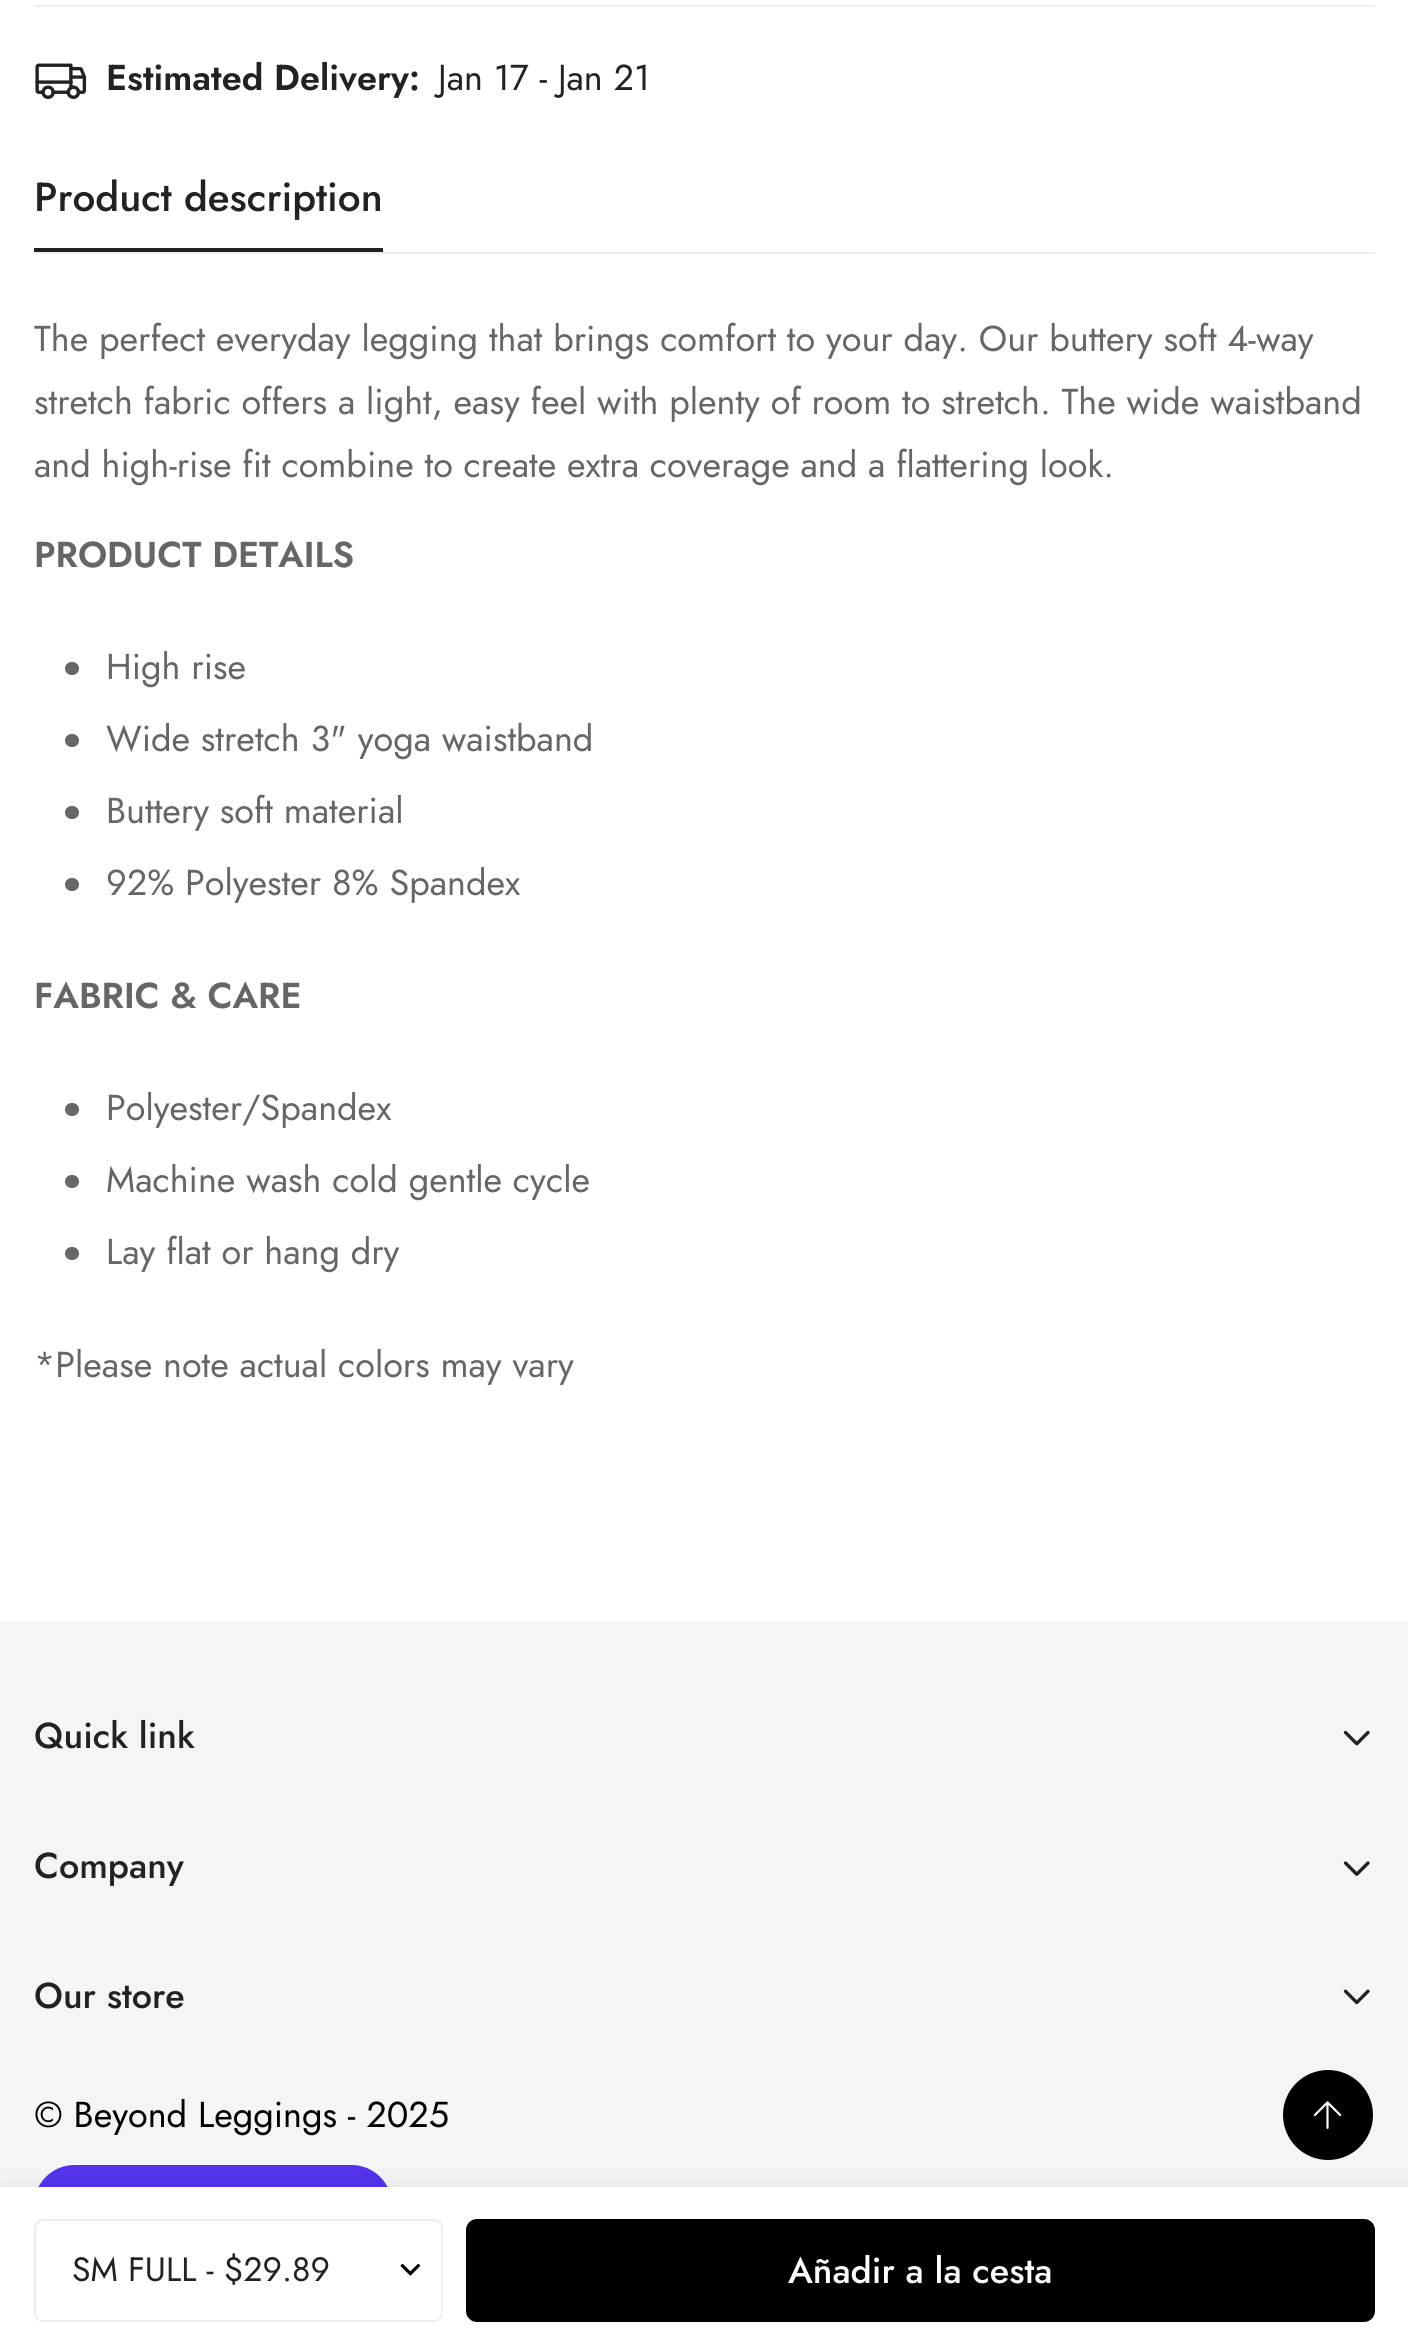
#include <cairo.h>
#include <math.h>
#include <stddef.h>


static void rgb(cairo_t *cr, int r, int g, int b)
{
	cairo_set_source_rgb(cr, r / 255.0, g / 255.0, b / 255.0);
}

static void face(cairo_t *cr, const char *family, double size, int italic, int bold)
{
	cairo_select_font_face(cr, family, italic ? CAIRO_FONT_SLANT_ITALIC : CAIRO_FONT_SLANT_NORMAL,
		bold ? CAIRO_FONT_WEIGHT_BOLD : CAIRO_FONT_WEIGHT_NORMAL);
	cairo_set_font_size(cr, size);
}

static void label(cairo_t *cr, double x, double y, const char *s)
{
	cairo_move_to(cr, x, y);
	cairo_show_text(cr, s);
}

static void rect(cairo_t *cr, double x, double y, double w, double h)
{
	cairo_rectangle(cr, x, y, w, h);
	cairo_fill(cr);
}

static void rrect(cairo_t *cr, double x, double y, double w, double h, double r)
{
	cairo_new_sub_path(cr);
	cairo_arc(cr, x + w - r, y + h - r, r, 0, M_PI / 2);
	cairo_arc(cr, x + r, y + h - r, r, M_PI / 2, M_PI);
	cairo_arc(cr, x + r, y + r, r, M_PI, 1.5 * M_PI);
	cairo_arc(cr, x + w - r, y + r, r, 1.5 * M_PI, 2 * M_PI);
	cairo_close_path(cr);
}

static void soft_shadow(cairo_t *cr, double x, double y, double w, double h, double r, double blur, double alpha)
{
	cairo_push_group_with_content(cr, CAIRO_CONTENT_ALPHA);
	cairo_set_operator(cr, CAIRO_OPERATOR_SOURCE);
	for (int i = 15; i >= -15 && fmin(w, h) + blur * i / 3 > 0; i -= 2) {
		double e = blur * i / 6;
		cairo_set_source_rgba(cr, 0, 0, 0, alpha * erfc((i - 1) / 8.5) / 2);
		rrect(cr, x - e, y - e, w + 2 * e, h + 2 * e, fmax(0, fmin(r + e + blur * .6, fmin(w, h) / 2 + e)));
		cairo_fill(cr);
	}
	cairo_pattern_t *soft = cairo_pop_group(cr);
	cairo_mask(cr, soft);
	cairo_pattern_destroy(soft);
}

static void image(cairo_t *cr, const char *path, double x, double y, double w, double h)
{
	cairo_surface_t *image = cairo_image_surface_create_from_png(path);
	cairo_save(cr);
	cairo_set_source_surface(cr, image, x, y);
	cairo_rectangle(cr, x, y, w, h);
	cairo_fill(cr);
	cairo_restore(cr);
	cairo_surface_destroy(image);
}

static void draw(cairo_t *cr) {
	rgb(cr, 255, 255, 255);
	cairo_paint(cr);
	rgb(cr, 238, 238, 238);
	rect(cr, 34, 5, 1341, 2);
	image(cr, "image0.png", 35, 63, 52, 36);
	face(cr, "Jost SemiBold", 36, 0, 0);
	rgb(cr, 34, 34, 34);
	label(cr, 106, 90, "Estimated Delivery:");
	face(cr, "Jost", 36, 0, 0);
	label(cr, 438, 90, "Jan 17 - Jan 21");
	rgb(cr, 245, 245, 245);
	rect(cr, 0, 1622, 1408, 565);
	rgb(cr, 84, 51, 235);
	rrect(cr, 34, 2165, 358, 81, 40.5);
	cairo_fill(cr);
	rgb(cr, 0, 0, 0);
	soft_shadow(cr, 0, 2187, 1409, 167, 0, 11, 0.09);
	rgb(cr, 255, 255, 255);
	rect(cr, 0, 2187, 1408, 165);
	image(cr, "image1.png", 400, 2264, 21, 12);
	rrect(cr, 35, 2220, 407, 101, 8);
	rgb(cr, 238, 238, 238);
	cairo_stroke(cr);
	face(cr, "Jost", 33.75, 0, 0);
	rgb(cr, 34, 34, 34);
	label(cr, 72, 2281, "SM FULL - $29.89");
	rgb(cr, 0, 0, 0);
	rrect(cr, 467, 2220, 907, 101, 10);
	cairo_fill_preserve(cr);
	cairo_stroke(cr);
	face(cr, "Jost Medium", 36, 0, 0);
	rgb(cr, 255, 255, 255);
	label(cr, 788, 2283, "Añadir a la cesta");
	rgb(cr, 238, 238, 238);
	rect(cr, 34, 252, 1341, 2);
	face(cr, "Jost Medium", 40.5, 0, 0);
	rgb(cr, 34, 34, 34);
	label(cr, 34, 211, "Product description");
	rect(cr, 34, 248, 349, 4);
	face(cr, "Jost", 36, 0, 0);
	rgb(cr, 102, 102, 102);
	label(cr, 34, 351, "The perfect everyday legging that brings comfort to your day. Our buttery soft 4-way");
	label(cr, 34, 414, "stretch fabric offers a light, easy feel with plenty of room to stretch. The wide waistband");
	label(cr, 34, 477, "and high-rise fit combine to create extra coverage and a flattering look.");
	face(cr, "Jost SemiBold", 36, 0, 0);
	label(cr, 34, 567, "PRODUCT DETAILS");
	rrect(cr, 65, 662, 14, 13, 6.5);
	cairo_fill(cr);
	face(cr, "Jost", 36, 0, 0);
	label(cr, 106, 679, "High rise");
	rrect(cr, 65, 734, 14, 13, 6.5);
	cairo_fill(cr);
	label(cr, 106, 751, "Wide stretch 3\" yoga waistband");
	rrect(cr, 65, 806, 14, 13, 6.5);
	cairo_fill(cr);
	label(cr, 106, 823, "Buttery soft material");
	rrect(cr, 65, 878, 14, 13, 6.5);
	cairo_fill(cr);
	label(cr, 106, 895, "92% Polyester 8% Spandex");
	face(cr, "Jost SemiBold", 36, 0, 0);
	label(cr, 34, 1008, "FABRIC & CARE");
	rrect(cr, 65, 1103, 14, 13, 6.5);
	cairo_fill(cr);
	face(cr, "Jost", 36, 0, 0);
	label(cr, 106, 1120, "Polyester/Spandex");
	rrect(cr, 65, 1175, 14, 13, 6.5);
	cairo_fill(cr);
	label(cr, 106, 1192, "Machine wash cold gentle cycle");
	rrect(cr, 65, 1247, 14, 13, 6.5);
	cairo_fill(cr);
	label(cr, 106, 1264, "Lay flat or hang dry");
	label(cr, 34, 1377, "*Please note actual colors may vary");
	face(cr, "Jost Medium", 36, 0, 0);
	rgb(cr, 34, 34, 34);
	label(cr, 34, 1748, "Quick link");
	image(cr, "image2.png", 1343, 1730, 27, 16);
	label(cr, 34, 1878, "Company");
	image(cr, "image3.png", 1343, 1861, 27, 15);
	label(cr, 34, 2008, "Our store");
	image(cr, "image4.png", 1343, 1989, 27, 16);
	face(cr, "Jost", 36, 0, 0);
	rgb(cr, 0, 0, 0);
	label(cr, 34, 2127, "© Beyond Leggings - 2025");
	cairo_new_path(cr);
	cairo_arc(cr, 1328, 2115, 44, 0, 2 * M_PI);
	cairo_fill_preserve(cr);
	cairo_stroke(cr);
	image(cr, "image5.png", 1313, 2101, 29, 28);
}

int main(void) {
	cairo_surface_t *surface = cairo_image_surface_create(CAIRO_FORMAT_RGB24, 1408, 2352);
	cairo_t *cr = cairo_create(surface);
	cairo_font_options_t *options = cairo_font_options_create();
	cairo_font_options_set_hint_metrics(options, CAIRO_HINT_METRICS_OFF);
	cairo_font_options_set_hint_style(options, CAIRO_HINT_STYLE_NONE);
	cairo_set_font_options(cr, options);
	cairo_set_miter_limit(cr, 4);
	draw(cr);
	cairo_surface_write_to_png(surface, "render.png");
	cairo_font_options_destroy(options);
	cairo_destroy(cr);
	cairo_surface_destroy(surface);
	return 0;
}
